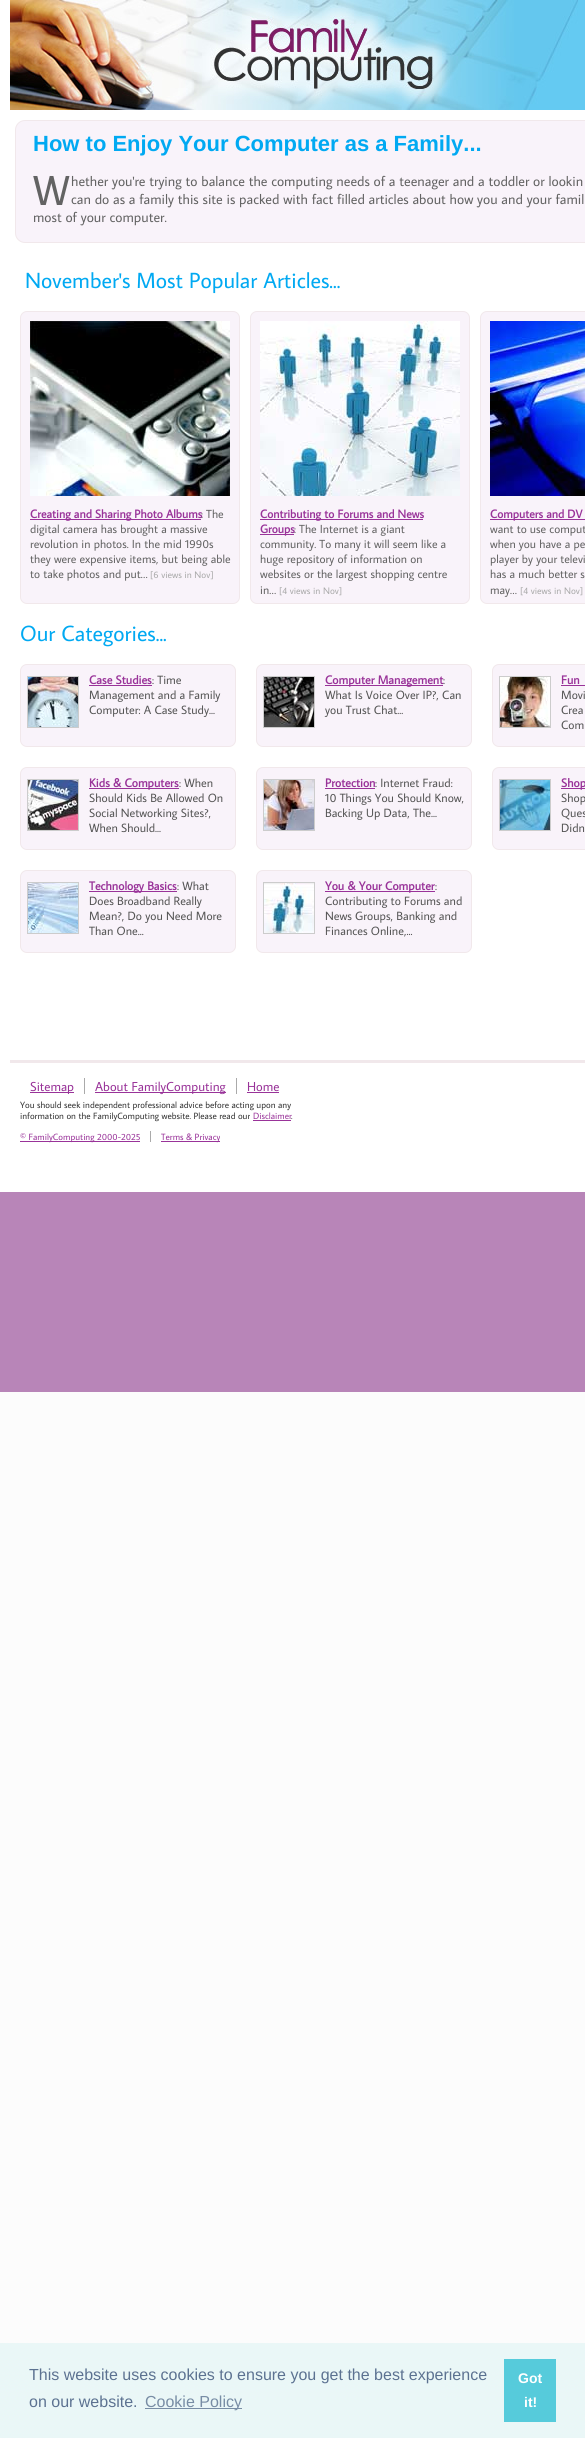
#include <cairo.h>
#include <math.h>
#include <stddef.h>


static void rgb(cairo_t *cr, int r, int g, int b)
{
	cairo_set_source_rgb(cr, r / 255.0, g / 255.0, b / 255.0);
}

static void face(cairo_t *cr, const char *family, double size, int italic, int bold)
{
	cairo_select_font_face(cr, family, italic ? CAIRO_FONT_SLANT_ITALIC : CAIRO_FONT_SLANT_NORMAL,
		bold ? CAIRO_FONT_WEIGHT_BOLD : CAIRO_FONT_WEIGHT_NORMAL);
	cairo_set_font_size(cr, size);
}

static void label(cairo_t *cr, double x, double y, const char *s)
{
	cairo_move_to(cr, x, y);
	cairo_show_text(cr, s);
}

static void rect(cairo_t *cr, double x, double y, double w, double h)
{
	cairo_rectangle(cr, x, y, w, h);
	cairo_fill(cr);
}

static void rrect(cairo_t *cr, double x, double y, double w, double h, double r)
{
	cairo_new_sub_path(cr);
	cairo_arc(cr, x + w - r, y + h - r, r, 0, M_PI / 2);
	cairo_arc(cr, x + r, y + h - r, r, M_PI / 2, M_PI);
	cairo_arc(cr, x + r, y + r, r, M_PI, 1.5 * M_PI);
	cairo_arc(cr, x + w - r, y + r, r, 1.5 * M_PI, 2 * M_PI);
	cairo_close_path(cr);
}

static void image(cairo_t *cr, const char *path, double x, double y, double w, double h)
{
	cairo_surface_t *image = cairo_image_surface_create_from_png(path);
	cairo_save(cr);
	cairo_set_source_surface(cr, image, x, y);
	cairo_rectangle(cr, x, y, w, h);
	cairo_fill(cr);
	cairo_restore(cr);
	cairo_surface_destroy(image);
}

static void draw(cairo_t *cr) {
	rgb(cr, 252, 252, 252);
	cairo_paint(cr);
	rgb(cr, 255, 255, 255);
	rect(cr, 0, 0, 585, 1192);
	image(cr, "image0.png", 10, 0, 575, 110);
	rgb(cr, 249, 243, 250);
	rrect(cr, 15.5, 120.5, 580, 122, 9.5);
	cairo_fill_preserve(cr);
	rgb(cr, 241, 232, 235);
	cairo_set_line_width(cr, 1);
	cairo_stroke(cr);
	face(cr, "Liberation Sans", 22, 0, 1);
	rgb(cr, 1, 169, 242);
	label(cr, 33, 151, "How to Enjoy Your Computer as a Family...");
	face(cr, "Average Sans", 42, 0, 0);
	rgb(cr, 99, 99, 99);
	label(cr, 33, 205, "W");
	face(cr, "Average Sans", 14, 0, 0);
	label(cr, 71, 186, "hether you're trying to balance the computing needs of a teenager and a toddler or lookin");
	label(cr, 71, 204, "can do as a family this site is packed with fact filled articles about how you and your famil");
	label(cr, 33, 222, "most of your computer.");
	face(cr, "Average Sans", 22, 0, 0);
	rgb(cr, 1, 169, 242);
	label(cr, 25, 288, "November's Most Popular Articles...");
	rgb(cr, 249, 243, 250);
	rrect(cr, 20.5, 311.5, 219, 292, 6.5);
	cairo_fill_preserve(cr);
	rgb(cr, 241, 232, 235);
	cairo_stroke(cr);
	image(cr, "image1.png", 30, 321, 200, 175);
	rgb(cr, 153, 51, 153);
	rect(cr, 30, 519, 171, 1);
	face(cr, "Average Sans", 11.75, 0, 1);
	label(cr, 30, 518, "Creating and Sharing Photo Albums");
	face(cr, "Average Sans", 11.75, 0, 0);
	rgb(cr, 99, 99, 99);
	label(cr, 201, 518, ": The");
	label(cr, 30, 533, "digital camera has brought a massive");
	label(cr, 30, 548, "revolution in photos. In the mid 1990s");
	label(cr, 30, 563, "they were expensive items, but being able");
	label(cr, 30, 578, "to take photos and put…");
	face(cr, "Average Sans", 9.5, 0, 0);
	rgb(cr, 170, 170, 170);
	label(cr, 150, 578, "[6 views in Nov]");
	rgb(cr, 249, 243, 250);
	rrect(cr, 250.5, 311.5, 219, 292, 6.5);
	cairo_fill_preserve(cr);
	rgb(cr, 241, 232, 235);
	cairo_stroke(cr);
	image(cr, "image2.png", 260, 321, 200, 175);
	rgb(cr, 153, 51, 153);
	rect(cr, 260, 519, 163, 1);
	face(cr, "Average Sans", 11.75, 0, 1);
	label(cr, 260, 518, "Contributing to Forums and News");
	rect(cr, 260, 534, 34, 1);
	label(cr, 260, 533, "Groups");
	face(cr, "Average Sans", 11.75, 0, 0);
	rgb(cr, 99, 99, 99);
	label(cr, 294, 533, ": The Internet is a giant");
	label(cr, 260, 548, "community. To many it will seem like a");
	label(cr, 260, 563, "huge repository of information on");
	label(cr, 260, 578, "websites or the largest shopping centre");
	label(cr, 260, 594, "in…");
	face(cr, "Average Sans", 9.5, 0, 0);
	rgb(cr, 170, 170, 170);
	label(cr, 279, 594, "[4 views in Nov]");
	rgb(cr, 249, 243, 250);
	rrect(cr, 480.5, 311.5, 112, 292, 6.5);
	cairo_fill_preserve(cr);
	rgb(cr, 241, 232, 235);
	cairo_stroke(cr);
	image(cr, "image3.png", 490, 321, 95, 175);
	rgb(cr, 153, 51, 153);
	rect(cr, 490, 519, 95, 1);
	face(cr, "Average Sans", 11.75, 0, 1);
	label(cr, 490, 518, "Computers and DV");
	face(cr, "Average Sans", 11.75, 0, 0);
	rgb(cr, 99, 99, 99);
	label(cr, 490, 533, "want to use comput");
	label(cr, 490, 548, "when you have a pe");
	label(cr, 490, 563, "player by your televi");
	label(cr, 490, 578, "has a much better s");
	label(cr, 490, 594, "may…");
	face(cr, "Average Sans", 9.5, 0, 0);
	rgb(cr, 170, 170, 170);
	label(cr, 520, 594, "[4 views in Nov]");
	face(cr, "Average Sans", 22, 0, 0);
	rgb(cr, 1, 169, 242);
	label(cr, 20, 641, "Our Categories...");
	rgb(cr, 249, 243, 250);
	rrect(cr, 20.5, 664.5, 215, 82, 6.5);
	cairo_fill_preserve(cr);
	rgb(cr, 241, 232, 235);
	cairo_stroke(cr);
	cairo_rectangle(cr, 27.5, 676.5, 51, 51);
	rgb(cr, 204, 204, 204);
	cairo_stroke(cr);
	image(cr, "image4.png", 28, 677, 50, 50);
	face(cr, "Average Sans", 12, 0, 1);
	rgb(cr, 153, 51, 153);
	label(cr, 89, 684, "Case Studies");
	rect(cr, 89, 685, 63, 1);
	face(cr, "Average Sans", 12, 0, 0);
	rgb(cr, 85, 85, 85);
	label(cr, 152, 684, ": Time");
	label(cr, 89, 699, "Management and a Family");
	label(cr, 89, 714, "Computer: A Case Study...");
	rgb(cr, 249, 243, 250);
	rrect(cr, 256.5, 664.5, 215, 82, 6.5);
	cairo_fill_preserve(cr);
	rgb(cr, 241, 232, 235);
	cairo_stroke(cr);
	cairo_rectangle(cr, 263.5, 676.5, 51, 51);
	rgb(cr, 204, 204, 204);
	cairo_stroke(cr);
	image(cr, "image5.png", 264, 677, 50, 50);
	rgb(cr, 153, 51, 153);
	rect(cr, 325, 685, 118, 1);
	face(cr, "Average Sans", 12, 0, 1);
	label(cr, 325, 684, "Computer Management");
	face(cr, "Average Sans", 12, 0, 0);
	rgb(cr, 85, 85, 85);
	label(cr, 443, 684, ":");
	label(cr, 325, 699, "What Is Voice Over IP?, Can");
	label(cr, 325, 714, "you Trust Chat...");
	rgb(cr, 249, 243, 250);
	rrect(cr, 492.5, 664.5, 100, 82, 6.5);
	cairo_fill_preserve(cr);
	rgb(cr, 241, 232, 235);
	cairo_stroke(cr);
	cairo_rectangle(cr, 499.5, 676.5, 51, 51);
	rgb(cr, 204, 204, 204);
	cairo_stroke(cr);
	image(cr, "image6.png", 500, 677, 50, 50);
	face(cr, "Average Sans", 12, 0, 1);
	rgb(cr, 153, 51, 153);
	label(cr, 561, 684, "Fun");
	rect(cr, 561, 685, 24, 1);
	face(cr, "Average Sans", 12, 0, 0);
	rgb(cr, 85, 85, 85);
	label(cr, 561, 699, "Movi");
	label(cr, 561, 714, "Crea");
	label(cr, 561, 729, "Com");
	rgb(cr, 249, 243, 250);
	rrect(cr, 20.5, 767.5, 215, 82, 6.5);
	cairo_fill_preserve(cr);
	rgb(cr, 241, 232, 235);
	cairo_stroke(cr);
	cairo_rectangle(cr, 27.5, 779.5, 51, 51);
	rgb(cr, 204, 204, 204);
	cairo_stroke(cr);
	image(cr, "image7.png", 28, 780, 50, 50);
	rgb(cr, 153, 51, 153);
	rect(cr, 89, 788, 90, 1);
	face(cr, "Average Sans", 12, 0, 1);
	label(cr, 89, 787, "Kids & Computers");
	face(cr, "Average Sans", 12, 0, 0);
	rgb(cr, 85, 85, 85);
	label(cr, 179, 787, ": When");
	label(cr, 89, 802, "Should Kids Be Allowed On");
	label(cr, 89, 817, "Social Networking Sites?,");
	label(cr, 89, 832, "When Should...");
	rgb(cr, 249, 243, 250);
	rrect(cr, 256.5, 767.5, 215, 82, 6.5);
	cairo_fill_preserve(cr);
	rgb(cr, 241, 232, 235);
	cairo_stroke(cr);
	cairo_rectangle(cr, 263.5, 779.5, 51, 51);
	rgb(cr, 204, 204, 204);
	cairo_stroke(cr);
	image(cr, "image8.png", 264, 780, 50, 50);
	face(cr, "Average Sans", 12, 0, 1);
	rgb(cr, 153, 51, 153);
	label(cr, 325, 787, "Protection");
	rect(cr, 325, 788, 50, 1);
	face(cr, "Average Sans", 12, 0, 0);
	rgb(cr, 85, 85, 85);
	label(cr, 375, 787, ": Internet Fraud:");
	label(cr, 325, 802, "10 Things You Should Know,");
	label(cr, 325, 817, "Backing Up Data, The...");
	rgb(cr, 249, 243, 250);
	rrect(cr, 492.5, 767.5, 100, 82, 6.5);
	cairo_fill_preserve(cr);
	rgb(cr, 241, 232, 235);
	cairo_stroke(cr);
	cairo_rectangle(cr, 499.5, 779.5, 51, 51);
	rgb(cr, 204, 204, 204);
	cairo_stroke(cr);
	image(cr, "image9.png", 500, 780, 50, 50);
	rgb(cr, 153, 51, 153);
	rect(cr, 561, 788, 24, 1);
	face(cr, "Average Sans", 12, 0, 1);
	label(cr, 561, 787, "Shop");
	face(cr, "Average Sans", 12, 0, 0);
	rgb(cr, 85, 85, 85);
	label(cr, 561, 802, "Shop");
	label(cr, 561, 817, "Ques");
	label(cr, 561, 832, "Didn");
	rgb(cr, 249, 243, 250);
	rrect(cr, 20.5, 870.5, 215, 82, 6.5);
	cairo_fill_preserve(cr);
	rgb(cr, 241, 232, 235);
	cairo_stroke(cr);
	cairo_rectangle(cr, 27.5, 882.5, 51, 51);
	rgb(cr, 204, 204, 204);
	cairo_stroke(cr);
	image(cr, "image10.png", 28, 883, 50, 50);
	rgb(cr, 153, 51, 153);
	rect(cr, 89, 891, 88, 1);
	face(cr, "Average Sans", 12, 0, 1);
	label(cr, 89, 890, "Technology Basics");
	face(cr, "Average Sans", 12, 0, 0);
	rgb(cr, 85, 85, 85);
	label(cr, 177, 890, ": What");
	label(cr, 89, 905, "Does Broadband Really");
	label(cr, 89, 920, "Mean?, Do you Need More");
	label(cr, 89, 935, "Than One...");
	rgb(cr, 249, 243, 250);
	rrect(cr, 256.5, 870.5, 215, 82, 6.5);
	cairo_fill_preserve(cr);
	rgb(cr, 241, 232, 235);
	cairo_stroke(cr);
	cairo_rectangle(cr, 263.5, 882.5, 51, 51);
	rgb(cr, 204, 204, 204);
	cairo_stroke(cr);
	image(cr, "image11.png", 264, 883, 50, 50);
	rgb(cr, 153, 51, 153);
	rect(cr, 325, 891, 110, 1);
	face(cr, "Average Sans", 12, 0, 1);
	label(cr, 325, 890, "You & Your Computer");
	face(cr, "Average Sans", 12, 0, 0);
	rgb(cr, 85, 85, 85);
	label(cr, 435, 890, ":");
	label(cr, 325, 905, "Contributing to Forums and");
	label(cr, 325, 920, "News Groups, Banking and");
	label(cr, 325, 935, "Finances Online,...");
	rgb(cr, 241, 232, 235);
	rect(cr, 10, 1060, 575, 3);
	rgb(cr, 170, 170, 170);
	rect(cr, 84, 1078, 1, 16);
	rgb(cr, 153, 51, 153);
	rect(cr, 30, 1092, 44, 1);
	face(cr, "Average Sans", 13, 0, 0);
	label(cr, 30, 1091, "Sitemap");
	rgb(cr, 170, 170, 170);
	rect(cr, 236, 1078, 1, 16);
	rgb(cr, 153, 51, 153);
	rect(cr, 95, 1092, 131, 1);
	label(cr, 95, 1091, "About FamilyComputing");
	label(cr, 247, 1091, "Home");
	rect(cr, 247, 1092, 32, 1);
	face(cr, "Average Sans", 9.1, 0, 0);
	rgb(cr, 51, 51, 51);
	label(cr, 20, 1108, "You should seek independent professional advice before acting upon any");
	label(cr, 20, 1119, "information on the FamilyComputing website. Please read our");
	rgb(cr, 153, 51, 153);
	label(cr, 253, 1119, "Disclaimer");
	rect(cr, 253, 1120, 38, 1);
	rgb(cr, 51, 51, 51);
	label(cr, 291, 1119, ".");
	rgb(cr, 170, 170, 170);
	rect(cr, 150, 1131, 1, 11);
	rgb(cr, 153, 51, 153);
	rect(cr, 20, 1141, 120, 1);
	label(cr, 20, 1140, "© FamilyComputing 2000-2025");
	rect(cr, 161, 1141, 59, 1);
	label(cr, 161, 1140, "Terms & Privacy");
	rgb(cr, 184, 133, 184);
	rect(cr, 0, 1192, 585, 200);
	rgb(cr, 234, 247, 247);
	rect(cr, 0, 2343, 585, 95);
	face(cr, "Liberation Sans", 16, 0, 0);
	rgb(cr, 92, 114, 145);
	label(cr, 29, 2380, "This website uses cookies to ensure you get the best experience");
	label(cr, 29, 2407, "on our website.");
	rgb(cr, 120, 141, 165);
	rect(cr, 145, 2408, 97, 1);
	label(cr, 145, 2407, "Cookie Policy");
	rgb(cr, 86, 203, 219);
	rect(cr, 504, 2359, 52, 63);
	face(cr, "Liberation Sans", 14, 0, 1);
	rgb(cr, 255, 255, 255);
	label(cr, 518, 2383, "Got");
	label(cr, 524, 2407, "it!");
}

int main(void) {
	cairo_surface_t *surface = cairo_image_surface_create(CAIRO_FORMAT_RGB24, 585, 2438);
	cairo_t *cr = cairo_create(surface);
	cairo_font_options_t *options = cairo_font_options_create();
	cairo_font_options_set_hint_metrics(options, CAIRO_HINT_METRICS_OFF);
	cairo_font_options_set_hint_style(options, CAIRO_HINT_STYLE_NONE);
	cairo_set_font_options(cr, options);
	cairo_set_miter_limit(cr, 4);
	draw(cr);
	cairo_surface_write_to_png(surface, "render.png");
	cairo_font_options_destroy(options);
	cairo_destroy(cr);
	cairo_surface_destroy(surface);
	return 0;
}
